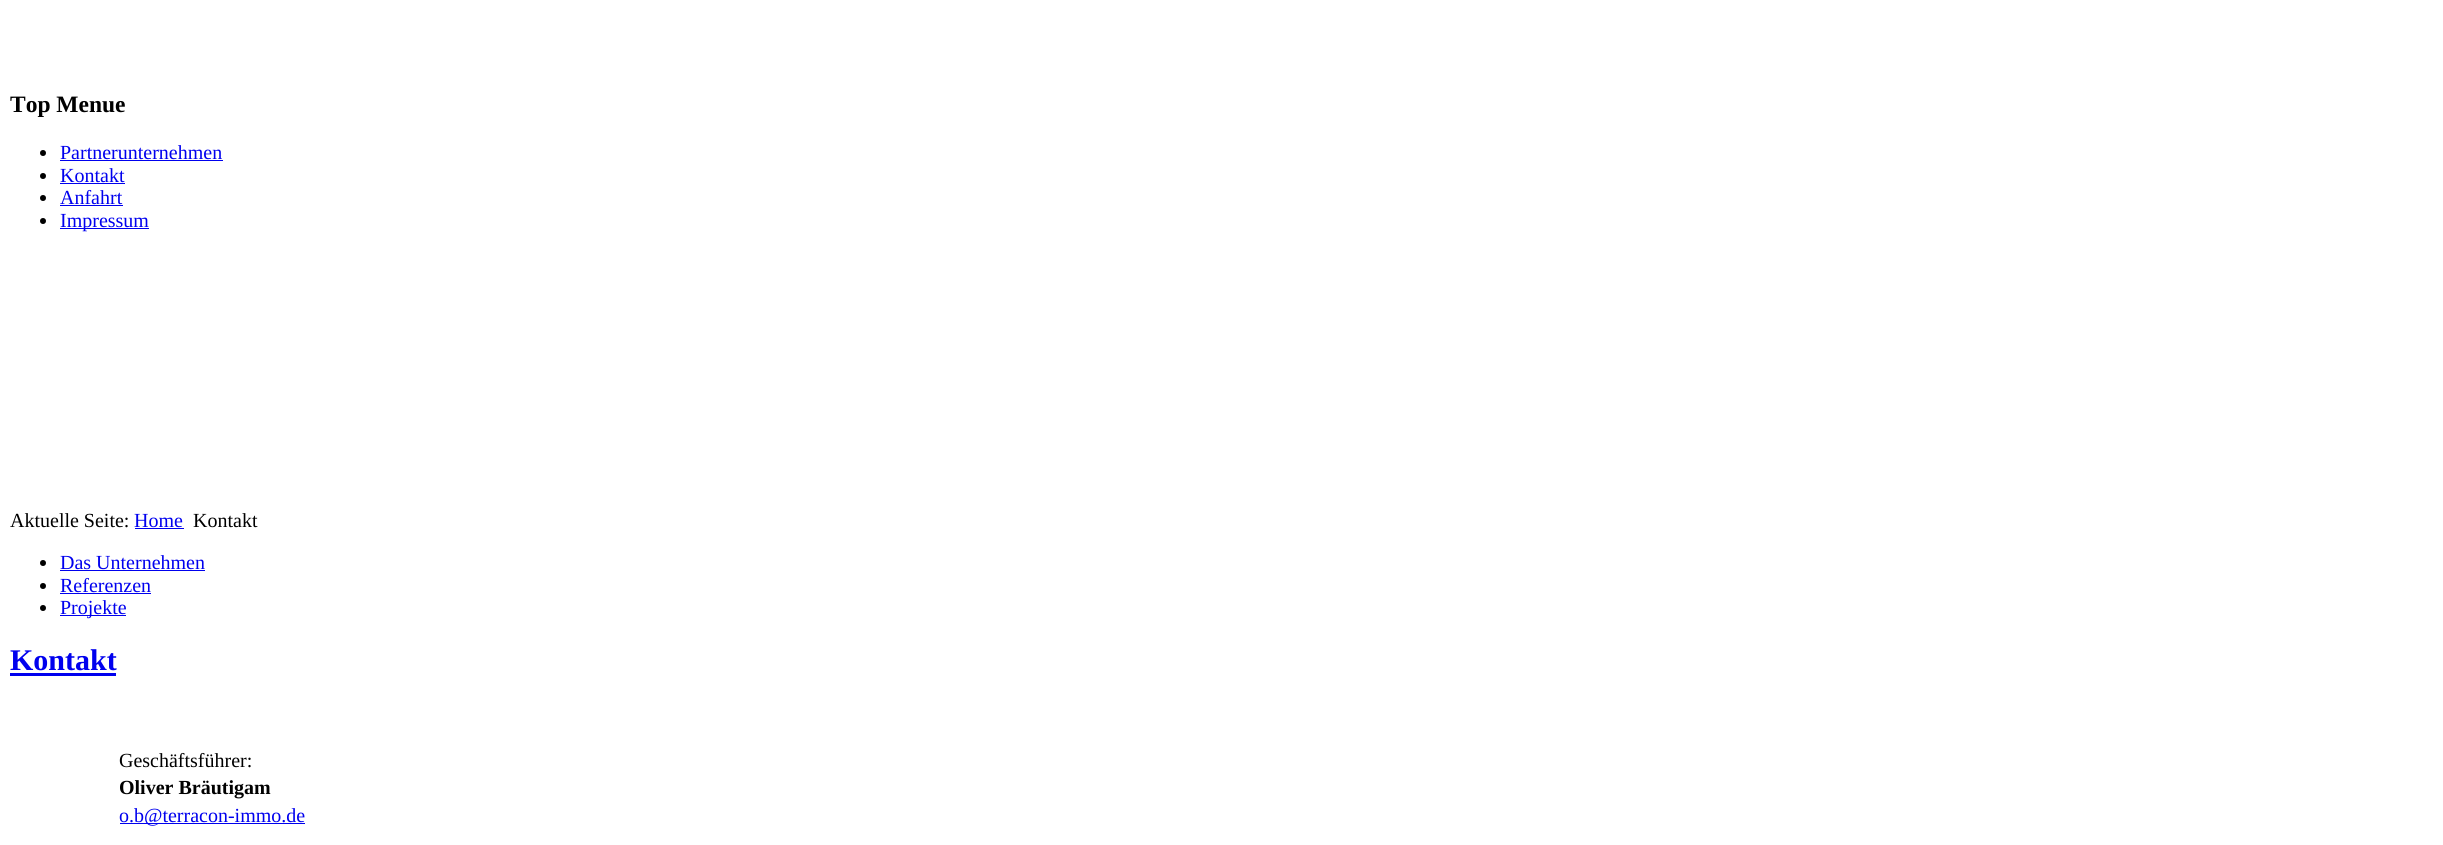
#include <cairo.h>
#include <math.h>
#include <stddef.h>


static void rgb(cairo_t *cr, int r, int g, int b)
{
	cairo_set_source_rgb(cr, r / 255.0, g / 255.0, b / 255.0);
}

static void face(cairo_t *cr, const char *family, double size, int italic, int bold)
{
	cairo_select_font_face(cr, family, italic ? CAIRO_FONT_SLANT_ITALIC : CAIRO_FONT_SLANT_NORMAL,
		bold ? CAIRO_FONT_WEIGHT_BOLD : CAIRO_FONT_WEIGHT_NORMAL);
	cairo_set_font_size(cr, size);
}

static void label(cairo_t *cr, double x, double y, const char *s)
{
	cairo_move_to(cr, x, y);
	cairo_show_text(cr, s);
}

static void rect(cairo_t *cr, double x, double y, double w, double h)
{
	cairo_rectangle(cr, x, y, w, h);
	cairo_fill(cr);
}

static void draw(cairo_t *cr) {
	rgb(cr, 255, 255, 255);
	cairo_paint(cr);
	face(cr, "Liberation Serif", 23.5, 0, 1);
	rgb(cr, 0, 0, 0);
	label(cr, 10, 112, "Top Menue");
	cairo_new_path(cr);
	cairo_arc(cr, 43, 153, 3, 0, 2 * M_PI);
	cairo_fill(cr);
	face(cr, "Liberation Serif", 20, 0, 0);
	rgb(cr, 0, 0, 238);
	label(cr, 60, 159, "Partnerunternehmen");
	rect(cr, 60, 160, 163, 1);
	rgb(cr, 0, 0, 0);
	cairo_new_path(cr);
	cairo_arc(cr, 43, 176, 3, 0, 2 * M_PI);
	cairo_fill(cr);
	rgb(cr, 0, 0, 238);
	label(cr, 60, 182, "Kontakt");
	rect(cr, 60, 183, 65, 1);
	rgb(cr, 0, 0, 0);
	cairo_new_path(cr);
	cairo_arc(cr, 43, 198, 3, 0, 2 * M_PI);
	cairo_fill(cr);
	rgb(cr, 0, 0, 238);
	label(cr, 60, 204, "Anfahrt");
	rect(cr, 60, 205, 63, 1);
	rgb(cr, 0, 0, 0);
	cairo_new_path(cr);
	cairo_arc(cr, 43, 221, 3, 0, 2 * M_PI);
	cairo_fill(cr);
	rgb(cr, 0, 0, 238);
	rect(cr, 60, 228, 89, 1);
	label(cr, 60, 227, "Impressum");
	rgb(cr, 0, 0, 0);
	label(cr, 10, 527, "Aktuelle Seite:");
	rgb(cr, 0, 0, 238);
	label(cr, 134, 527, "Home");
	rect(cr, 135, 528, 49, 1);
	rgb(cr, 0, 0, 0);
	label(cr, 193, 527, "Kontakt");
	cairo_new_path(cr);
	cairo_arc(cr, 43, 563, 3, 0, 2 * M_PI);
	cairo_fill(cr);
	rgb(cr, 0, 0, 238);
	label(cr, 60, 569, "Das Unternehmen");
	rect(cr, 60, 570, 145, 1);
	rgb(cr, 0, 0, 0);
	cairo_new_path(cr);
	cairo_arc(cr, 43, 586, 3, 0, 2 * M_PI);
	cairo_fill(cr);
	rgb(cr, 0, 0, 238);
	label(cr, 60, 592, "Referenzen");
	rect(cr, 60, 593, 91, 1);
	rgb(cr, 0, 0, 0);
	cairo_new_path(cr);
	cairo_arc(cr, 43, 608, 3, 0, 2 * M_PI);
	cairo_fill(cr);
	rgb(cr, 0, 0, 238);
	rect(cr, 60, 615, 66, 1);
	label(cr, 60, 614, "Projekte");
	face(cr, "Liberation Serif", 30, 0, 1);
	label(cr, 10, 670, "Kontakt");
	rect(cr, 10, 673, 106, 3);
	face(cr, "Liberation Serif", 20, 0, 0);
	rgb(cr, 0, 0, 0);
	label(cr, 119, 767, "Geschäftsführer:");
	face(cr, "Liberation Serif", 20, 0, 1);
	label(cr, 119, 794, "Oliver Bräutigam");
	rgb(cr, 0, 0, 238);
	rect(cr, 120, 823, 185, 1);
	face(cr, "Liberation Serif", 20, 0, 0);
	label(cr, 119, 822, "o.b@terracon-immo.de");
}

int main(void) {
	cairo_surface_t *surface = cairo_image_surface_create(CAIRO_FORMAT_RGB24, 2443, 845);
	cairo_t *cr = cairo_create(surface);
	cairo_font_options_t *options = cairo_font_options_create();
	cairo_font_options_set_hint_metrics(options, CAIRO_HINT_METRICS_OFF);
	cairo_font_options_set_hint_style(options, CAIRO_HINT_STYLE_NONE);
	cairo_set_font_options(cr, options);
	cairo_set_miter_limit(cr, 4);
	draw(cr);
	cairo_surface_write_to_png(surface, "render.png");
	cairo_font_options_destroy(options);
	cairo_destroy(cr);
	cairo_surface_destroy(surface);
	return 0;
}
